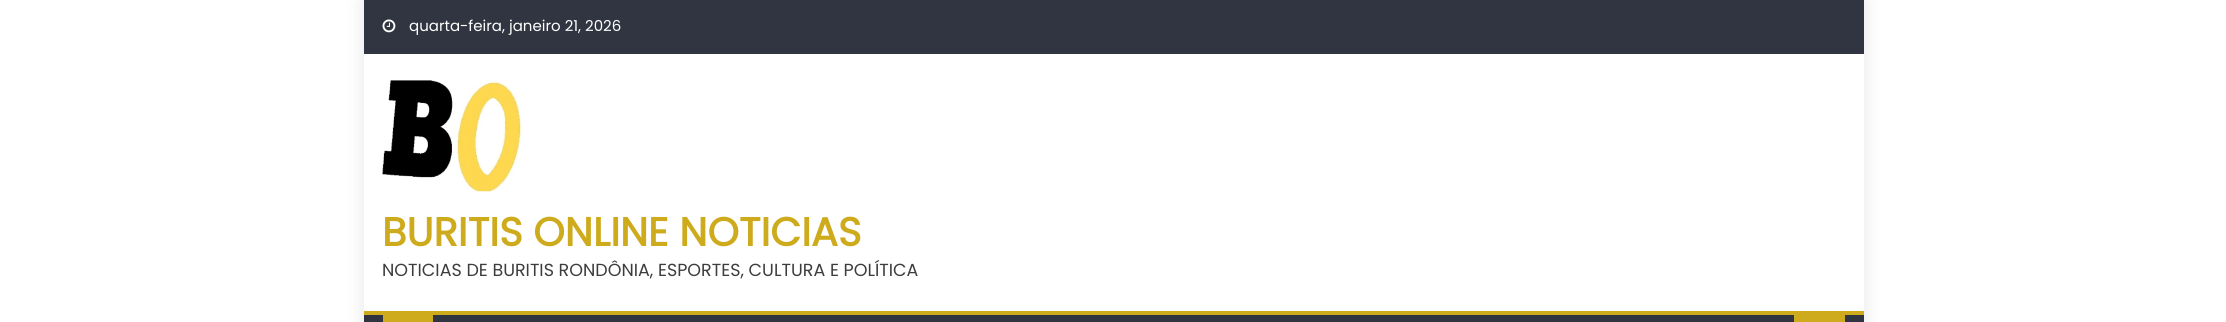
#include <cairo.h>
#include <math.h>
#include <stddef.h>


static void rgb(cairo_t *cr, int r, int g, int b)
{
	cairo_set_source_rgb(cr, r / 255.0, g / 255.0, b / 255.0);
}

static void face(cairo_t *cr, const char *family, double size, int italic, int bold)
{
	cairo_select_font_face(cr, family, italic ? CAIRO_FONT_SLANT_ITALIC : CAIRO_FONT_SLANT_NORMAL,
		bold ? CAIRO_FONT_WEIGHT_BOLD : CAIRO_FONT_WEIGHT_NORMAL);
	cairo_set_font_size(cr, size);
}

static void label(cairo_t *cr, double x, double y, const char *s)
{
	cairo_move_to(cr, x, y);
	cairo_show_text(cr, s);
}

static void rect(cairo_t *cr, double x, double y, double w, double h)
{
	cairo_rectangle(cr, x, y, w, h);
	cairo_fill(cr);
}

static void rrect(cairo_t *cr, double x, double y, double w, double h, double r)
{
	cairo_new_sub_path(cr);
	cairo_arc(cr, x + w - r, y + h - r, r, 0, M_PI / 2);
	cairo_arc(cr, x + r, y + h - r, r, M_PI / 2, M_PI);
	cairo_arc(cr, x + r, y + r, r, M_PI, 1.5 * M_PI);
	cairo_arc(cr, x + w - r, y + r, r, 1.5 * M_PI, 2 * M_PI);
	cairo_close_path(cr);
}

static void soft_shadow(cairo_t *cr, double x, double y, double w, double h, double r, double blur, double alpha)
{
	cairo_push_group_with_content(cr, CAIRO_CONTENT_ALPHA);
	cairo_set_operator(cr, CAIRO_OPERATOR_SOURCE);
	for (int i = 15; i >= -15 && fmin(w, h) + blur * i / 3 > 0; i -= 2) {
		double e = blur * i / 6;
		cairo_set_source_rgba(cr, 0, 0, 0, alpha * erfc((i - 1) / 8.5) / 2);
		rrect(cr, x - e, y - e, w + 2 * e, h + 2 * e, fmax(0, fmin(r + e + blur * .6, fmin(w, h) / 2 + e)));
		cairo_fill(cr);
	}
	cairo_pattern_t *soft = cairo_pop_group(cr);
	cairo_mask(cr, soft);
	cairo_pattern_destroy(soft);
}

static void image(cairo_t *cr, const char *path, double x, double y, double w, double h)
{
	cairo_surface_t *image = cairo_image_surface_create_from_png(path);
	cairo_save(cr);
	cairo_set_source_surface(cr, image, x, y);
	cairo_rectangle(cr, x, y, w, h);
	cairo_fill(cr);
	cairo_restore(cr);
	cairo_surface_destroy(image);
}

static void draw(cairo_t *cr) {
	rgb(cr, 255, 255, 255);
	cairo_paint(cr);
	rgb(cr, 0, 0, 0);
	soft_shadow(cr, 364, 0, 1500, 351, 0, 9.5, 0.1);
	rgb(cr, 255, 255, 255);
	rect(cr, 364, 54, 1500, 257);
	rgb(cr, 49, 53, 65);
	rect(cr, 364, 0, 1500, 54);
	image(cr, "image0.png", 382, 19, 14, 14);
	face(cr, "Poppins", 15, 0, 0);
	rgb(cr, 255, 255, 255);
	label(cr, 409, 31, "quarta-feira, janeiro 21, 2026");
	image(cr, "image1.png", 382, 80, 140, 112);
	face(cr, "Poppins", 40, 0, 1);
	rgb(cr, 206, 171, 28);
	label(cr, 382, 246, "BURITIS ONLINE NOTICIAS");
	face(cr, "Poppins", 17.5, 0, 0);
	rgb(cr, 61, 61, 61);
	label(cr, 382, 276, "NOTICIAS DE BURITIS RONDÔNIA, ESPORTES, CULTURA E POLÍTICA");
	rgb(cr, 48, 52, 64);
	rect(cr, 364, 315, 1500, 7);
	rgb(cr, 206, 171, 28);
	rect(cr, 364, 311, 1500, 4);
	rect(cr, 383, 315, 50, 7);
	rect(cr, 1794, 315, 51, 7);
}

int main(void) {
	cairo_surface_t *surface = cairo_image_surface_create(CAIRO_FORMAT_RGB24, 2226, 322);
	cairo_t *cr = cairo_create(surface);
	cairo_font_options_t *options = cairo_font_options_create();
	cairo_font_options_set_hint_metrics(options, CAIRO_HINT_METRICS_OFF);
	cairo_font_options_set_hint_style(options, CAIRO_HINT_STYLE_NONE);
	cairo_set_font_options(cr, options);
	cairo_set_miter_limit(cr, 4);
	draw(cr);
	cairo_surface_write_to_png(surface, "render.png");
	cairo_font_options_destroy(options);
	cairo_destroy(cr);
	cairo_surface_destroy(surface);
	return 0;
}
